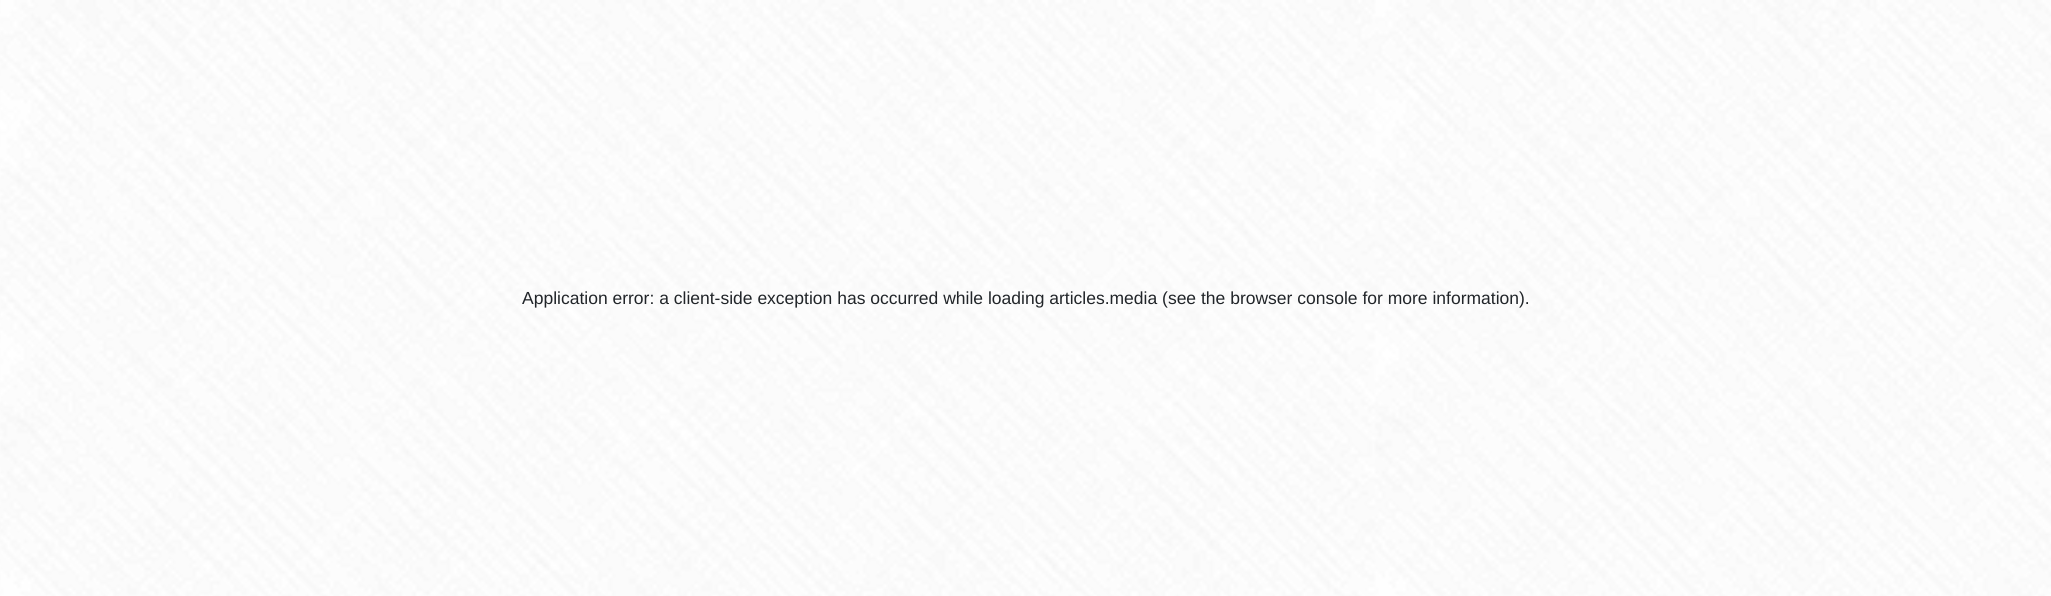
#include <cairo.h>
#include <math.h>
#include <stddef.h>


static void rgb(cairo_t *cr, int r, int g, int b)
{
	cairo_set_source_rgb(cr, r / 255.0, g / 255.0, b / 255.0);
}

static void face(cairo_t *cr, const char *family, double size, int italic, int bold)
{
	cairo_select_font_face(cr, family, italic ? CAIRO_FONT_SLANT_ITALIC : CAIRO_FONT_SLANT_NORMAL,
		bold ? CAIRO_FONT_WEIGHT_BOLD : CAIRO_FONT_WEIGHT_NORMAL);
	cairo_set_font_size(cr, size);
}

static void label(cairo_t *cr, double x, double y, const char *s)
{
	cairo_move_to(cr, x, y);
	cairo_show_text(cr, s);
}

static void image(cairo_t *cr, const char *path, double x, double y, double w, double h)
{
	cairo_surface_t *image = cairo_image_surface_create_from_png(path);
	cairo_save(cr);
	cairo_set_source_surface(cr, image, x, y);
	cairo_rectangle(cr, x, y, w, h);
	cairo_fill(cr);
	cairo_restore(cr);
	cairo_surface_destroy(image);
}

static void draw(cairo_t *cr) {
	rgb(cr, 255, 255, 255);
	cairo_paint(cr);
	image(cr, "image0.png", 0, 0, 2051, 596);
	face(cr, "Liberation Sans", 17.5, 0, 0);
	rgb(cr, 33, 37, 41);
	label(cr, 522, 304, "Application error: a client-side exception has occurred while loading articles.media (see the browser console for more information).");
}

int main(void) {
	cairo_surface_t *surface = cairo_image_surface_create(CAIRO_FORMAT_RGB24, 2051, 596);
	cairo_t *cr = cairo_create(surface);
	cairo_font_options_t *options = cairo_font_options_create();
	cairo_font_options_set_hint_metrics(options, CAIRO_HINT_METRICS_OFF);
	cairo_font_options_set_hint_style(options, CAIRO_HINT_STYLE_NONE);
	cairo_set_font_options(cr, options);
	cairo_set_miter_limit(cr, 4);
	draw(cr);
	cairo_surface_write_to_png(surface, "render.png");
	cairo_font_options_destroy(options);
	cairo_destroy(cr);
	cairo_surface_destroy(surface);
	return 0;
}
